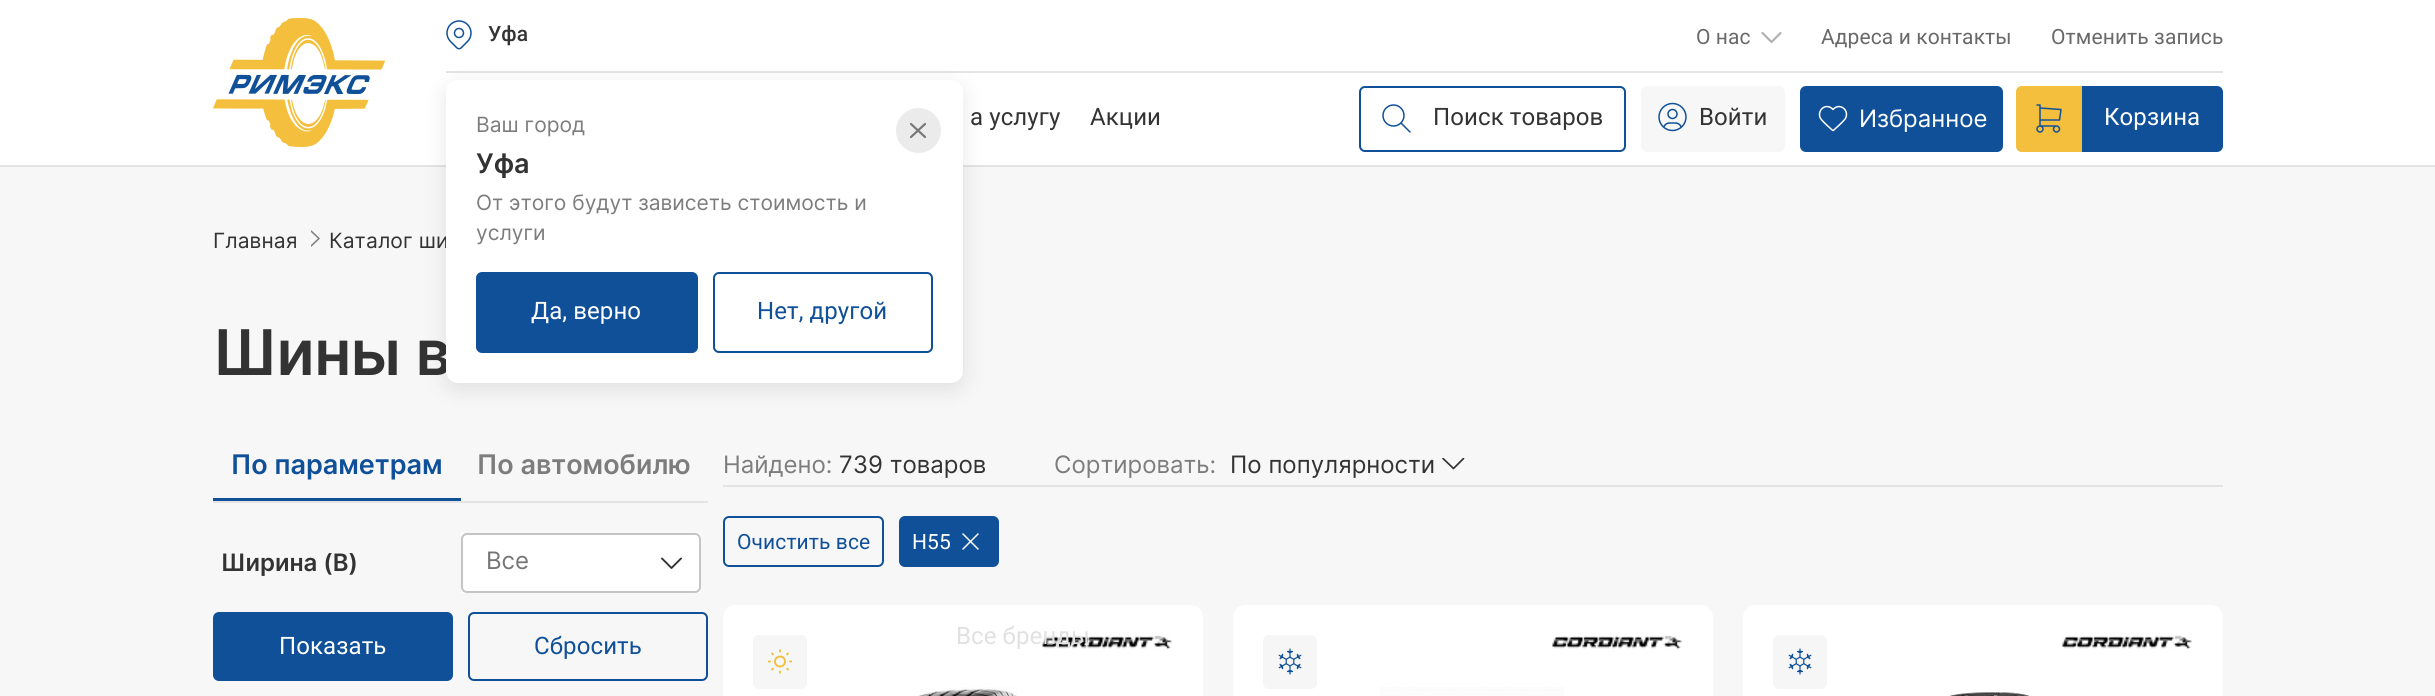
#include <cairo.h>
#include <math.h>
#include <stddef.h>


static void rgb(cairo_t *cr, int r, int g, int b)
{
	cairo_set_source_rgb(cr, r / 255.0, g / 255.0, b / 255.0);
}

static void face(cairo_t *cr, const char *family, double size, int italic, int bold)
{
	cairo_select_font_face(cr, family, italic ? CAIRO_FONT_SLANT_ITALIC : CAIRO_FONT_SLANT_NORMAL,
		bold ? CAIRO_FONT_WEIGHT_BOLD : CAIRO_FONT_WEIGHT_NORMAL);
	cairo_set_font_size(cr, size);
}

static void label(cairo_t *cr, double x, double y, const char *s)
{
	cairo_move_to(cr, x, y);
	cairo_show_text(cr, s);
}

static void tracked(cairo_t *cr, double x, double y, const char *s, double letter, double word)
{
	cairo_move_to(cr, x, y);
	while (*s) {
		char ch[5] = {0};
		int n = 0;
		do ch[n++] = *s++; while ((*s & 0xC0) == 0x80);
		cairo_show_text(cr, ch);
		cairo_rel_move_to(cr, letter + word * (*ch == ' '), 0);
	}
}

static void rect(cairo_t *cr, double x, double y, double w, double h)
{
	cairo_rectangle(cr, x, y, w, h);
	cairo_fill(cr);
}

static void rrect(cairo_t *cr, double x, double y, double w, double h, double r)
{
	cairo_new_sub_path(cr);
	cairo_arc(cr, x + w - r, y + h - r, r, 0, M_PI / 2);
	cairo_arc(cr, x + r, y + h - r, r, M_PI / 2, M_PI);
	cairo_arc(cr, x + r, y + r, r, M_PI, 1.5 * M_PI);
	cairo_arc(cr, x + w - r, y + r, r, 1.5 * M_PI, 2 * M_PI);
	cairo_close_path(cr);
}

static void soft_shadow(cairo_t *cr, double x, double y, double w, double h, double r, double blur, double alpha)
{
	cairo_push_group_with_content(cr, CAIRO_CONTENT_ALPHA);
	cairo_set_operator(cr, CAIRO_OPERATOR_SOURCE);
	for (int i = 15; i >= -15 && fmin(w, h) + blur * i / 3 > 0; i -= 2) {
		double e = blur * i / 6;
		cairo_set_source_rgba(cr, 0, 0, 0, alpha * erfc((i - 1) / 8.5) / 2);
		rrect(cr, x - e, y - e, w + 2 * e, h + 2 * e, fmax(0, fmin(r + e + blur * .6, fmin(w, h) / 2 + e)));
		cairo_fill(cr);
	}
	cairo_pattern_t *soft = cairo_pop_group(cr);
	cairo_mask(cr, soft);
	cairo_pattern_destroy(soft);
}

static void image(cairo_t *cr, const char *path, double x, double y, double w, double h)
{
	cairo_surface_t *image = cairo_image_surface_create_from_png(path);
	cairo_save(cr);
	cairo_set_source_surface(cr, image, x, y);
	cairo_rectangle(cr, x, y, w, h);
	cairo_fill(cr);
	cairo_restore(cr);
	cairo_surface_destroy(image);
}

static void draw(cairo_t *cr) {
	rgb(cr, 247, 247, 247);
	cairo_paint(cr);
	face(cr, "Inter", 21, 0, 0);
	rgb(cr, 51, 51, 51);
	tracked(cr, 213, 248, "Главная", 0.1, 0);
	cairo_save(cr);
	cairo_rectangle(cr, 311, 230, 9, 18);
	cairo_clip(cr);
	cairo_new_path(cr);
	cairo_move_to(cr, 311, 231);
	cairo_line_to(cr, 319, 238.5);
	cairo_line_to(cr, 311, 246);
	rgb(cr, 125, 125, 125);
	cairo_set_line_width(cr, 1.5);
	cairo_set_line_cap(cr, CAIRO_LINE_CAP_ROUND);
	cairo_set_line_join(cr, CAIRO_LINE_JOIN_ROUND);
	cairo_stroke(cr);
	cairo_restore(cr);
	tracked(cr, 329, 248, "Каталог ши", 0.1, 0);
	face(cr, "Inter SemiBold", 63, 0, 0);
	tracked(cr, 213, 375, "Шины в", -0.5, 0);
	rgb(cr, 255, 255, 255);
	rect(cr, 0, 0, 2435, 165);
	rgb(cr, 228, 228, 228);
	rect(cr, 0, 165, 2435, 2);
	image(cr, "image0.png", 213, 18, 173, 129);
	rect(cr, 446, 71, 1777, 2);
	image(cr, "image1.png", 446, 20, 26, 30);
	face(cr, "Roboto Medium", 21, 0, 0);
	rgb(cr, 51, 51, 51);
	tracked(cr, 488, 41, "Уфа", 0.1, 0);
	rgb(cr, 0, 0, 0);
	soft_shadow(cr, 446, 86, 517, 303, 12, 11, 0.1);
	rgb(cr, 255, 255, 255);
	rrect(cr, 446, 80, 517, 303, 12);
	cairo_fill(cr);
	face(cr, "Inter", 21, 0, 0);
	rgb(cr, 125, 125, 125);
	label(cr, 476, 132, "Ваш город");
	rgb(cr, 235, 235, 235);
	cairo_new_path(cr);
	cairo_arc(cr, 918.5, 130.5, 22.5, 0, 2 * M_PI);
	cairo_fill(cr);
	cairo_new_path(cr);
	cairo_move_to(cr, 925, 124);
	cairo_line_to(cr, 911, 137);
	cairo_move_to(cr, 911, 124);
	cairo_line_to(cr, 925, 137);
	rgb(cr, 120, 120, 120);
	cairo_set_line_width(cr, 2.2);
	cairo_set_line_cap(cr, CAIRO_LINE_CAP_ROUND);
	cairo_set_line_join(cr, CAIRO_LINE_JOIN_ROUND);
	cairo_stroke(cr);
	face(cr, "Inter SemiBold", 27, 0, 0);
	rgb(cr, 51, 51, 51);
	label(cr, 476, 173, "Уфа");
	face(cr, "Inter", 21, 0, 0);
	rgb(cr, 125, 125, 125);
	label(cr, 476, 210, "От этого будут зависеть стоимость и");
	label(cr, 476, 240, "услуги");
	rgb(cr, 16, 80, 153);
	rrect(cr, 476, 272, 222, 81, 6);
	cairo_fill(cr);
	face(cr, "Roboto", 24, 0, 0);
	rgb(cr, 255, 255, 255);
	tracked(cr, 531, 319, "Да, верно", 0.1, 0);
	rrect(cr, 714, 273, 218, 79, 5);
	rgb(cr, 16, 80, 153);
	cairo_set_line_width(cr, 2);
	cairo_set_line_cap(cr, CAIRO_LINE_CAP_BUTT);
	cairo_set_line_join(cr, CAIRO_LINE_JOIN_MITER);
	cairo_stroke(cr);
	tracked(cr, 757, 319, "Нет, другой", 0.1, 0);
	face(cr, "Roboto", 21, 0, 0);
	rgb(cr, 105, 105, 105);
	tracked(cr, 1696, 44, "О нас", 0.1, 0);
	cairo_new_path(cr);
	cairo_move_to(cr, 1780.5, 33);
	cairo_line_to(cr, 1771.5, 42);
	cairo_line_to(cr, 1762.5, 33);
	rgb(cr, 177, 177, 177);
	cairo_set_line_width(cr, 2.2);
	cairo_set_line_cap(cr, CAIRO_LINE_CAP_ROUND);
	cairo_set_line_join(cr, CAIRO_LINE_JOIN_ROUND);
	cairo_stroke(cr);
	rgb(cr, 105, 105, 105);
	tracked(cr, 1821, 44, "Адреса и контакты", 0.1, 0);
	tracked(cr, 2051, 44, "Отменить запись", 0.1, 0);
	face(cr, "Roboto", 24, 0, 0);
	rgb(cr, 51, 51, 51);
	tracked(cr, 970, 125, "а услугу", 0.1, 0);
	tracked(cr, 1090, 125, "Акции", 0.1, 0);
	rgb(cr, 255, 255, 255);
	rrect(cr, 723, 605, 480, 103, 12);
	cairo_fill(cr);
	image(cr, "image8.png", 1042, 635, 130, 15);
	rgb(cr, 225, 225, 225);
	tracked(cr, 956, 644, "Все бренды", 0.1, 0);
	rrect(cr, 1360, 87, 265, 64, 5);
	rgb(cr, 16, 80, 153);
	cairo_set_line_width(cr, 2);
	cairo_set_line_cap(cr, CAIRO_LINE_CAP_BUTT);
	cairo_set_line_join(cr, CAIRO_LINE_JOIN_MITER);
	cairo_stroke(cr);
	image(cr, "image2.png", 1382, 104, 29, 29);
	rgb(cr, 51, 51, 51);
	tracked(cr, 1433, 125, "Поиск товаров", 0.1, 0);
	rgb(cr, 247, 247, 247);
	rrect(cr, 1641, 86, 144, 66, 6);
	cairo_fill(cr);
	image(cr, "image3.png", 1658, 102, 29, 30);
	rgb(cr, 51, 51, 51);
	tracked(cr, 1699, 125, "Войти", 0.1, 0);
	rgb(cr, 16, 80, 153);
	rrect(cr, 1800, 86, 203, 66, 6);
	cairo_fill(cr);
	image(cr, "image4.png", 1818, 105, 30, 27);
	face(cr, "Inter", 24, 0, 0);
	rgb(cr, 255, 255, 255);
	label(cr, 1859, 127, "Избранное");
	rgb(cr, 16, 80, 153);
	rrect(cr, 2018, 86, 205, 66, 6);
	cairo_fill(cr);
	rgb(cr, 244, 191, 60);
	cairo_new_path(cr);
	cairo_move_to(cr, 2022, 87);
	cairo_line_to(cr, 2081, 87);
	cairo_line_to(cr, 2081, 151);
	cairo_line_to(cr, 2022, 151);
	cairo_curve_to(cr, 2019, 151, 2017, 149, 2017, 146);
	cairo_line_to(cr, 2017, 92);
	cairo_curve_to(cr, 2017, 89, 2019, 87, 2022, 87);
	cairo_close_path(cr);
	cairo_fill_preserve(cr);
	cairo_stroke(cr);
	image(cr, "image5.png", 2036, 104, 26, 29);
	face(cr, "Roboto", 24, 0, 0);
	rgb(cr, 255, 255, 255);
	tracked(cr, 2104, 125, "Корзина", 0.1, 0);
	rgb(cr, 228, 228, 228);
	rect(cr, 213, 501, 495, 2);
	rgb(cr, 16, 80, 153);
	rect(cr, 213, 498, 248, 3);
	face(cr, "Inter SemiBold", 27, 0, 0);
	label(cr, 231, 474, "По параметрам");
	rgb(cr, 125, 125, 125);
	label(cr, 477, 474, "По автомобилю");
	face(cr, "Inter SemiBold", 24, 0, 0);
	rgb(cr, 51, 51, 51);
	label(cr, 221, 571, "Ширина (B)");
	rgb(cr, 255, 255, 255);
	rect(cr, 461, 533, 240, 60);
	rrect(cr, 462, 534, 238, 58, 5);
	rgb(cr, 197, 197, 197);
	cairo_stroke(cr);
	face(cr, "Inter", 24, 0, 0);
	rgb(cr, 117, 117, 117);
	label(cr, 486, 569, "Все");
	cairo_new_path(cr);
	cairo_move_to(cr, 662, 558.5);
	cairo_line_to(cr, 671.5, 568);
	cairo_line_to(cr, 681, 558.5);
	rgb(cr, 51, 51, 51);
	cairo_set_line_width(cr, 1.9);
	cairo_set_line_cap(cr, CAIRO_LINE_CAP_ROUND);
	cairo_set_line_join(cr, CAIRO_LINE_JOIN_ROUND);
	cairo_stroke(cr);
	rgb(cr, 16, 80, 153);
	rrect(cr, 213, 612, 240, 69, 6);
	cairo_fill(cr);
	face(cr, "Roboto", 24, 0, 0);
	rgb(cr, 255, 255, 255);
	tracked(cr, 279, 654, "Показать", 0.1, 0);
	rrect(cr, 469, 613, 238, 67, 5);
	rgb(cr, 16, 80, 153);
	cairo_set_line_width(cr, 2);
	cairo_set_line_cap(cr, CAIRO_LINE_CAP_BUTT);
	cairo_set_line_join(cr, CAIRO_LINE_JOIN_MITER);
	cairo_stroke(cr);
	tracked(cr, 534, 654, "Сбросить", 0.1, 0);
	rgb(cr, 228, 228, 228);
	rect(cr, 723, 485, 1500, 2);
	face(cr, "Inter", 24, 0, 0);
	rgb(cr, 125, 125, 125);
	label(cr, 723, 473, "Найдено:");
	rgb(cr, 51, 51, 51);
	label(cr, 839, 473, "739 товаров");
	rgb(cr, 125, 125, 125);
	label(cr, 1054, 473, "Сортировать:");
	rgb(cr, 51, 51, 51);
	label(cr, 1230, 473, "По популярности");
	cairo_save(cr);
	cairo_rectangle(cr, 1442, 458, 24, 13);
	cairo_clip(cr);
	cairo_new_path(cr);
	cairo_move_to(cr, 1443, 458.5);
	cairo_line_to(cr, 1453.5, 468.5);
	cairo_line_to(cr, 1463.5, 458.5);
	cairo_set_line_width(cr, 1.7);
	cairo_set_line_cap(cr, CAIRO_LINE_CAP_ROUND);
	cairo_set_line_join(cr, CAIRO_LINE_JOIN_ROUND);
	cairo_stroke(cr);
	cairo_restore(cr);
	rrect(cr, 724, 517, 159, 49, 5);
	rgb(cr, 16, 80, 153);
	cairo_stroke(cr);
	face(cr, "Roboto", 21, 0, 0);
	tracked(cr, 737, 549, "Очистить все", 0.1, 0);
	rrect(cr, 900, 517, 98, 49, 5);
	cairo_fill_preserve(cr);
	cairo_stroke(cr);
	rgb(cr, 255, 255, 255);
	tracked(cr, 912, 549, "H55", 0.1, 0);
	image(cr, "image6.png", 962, 533, 17, 17);
	rgb(cr, 246, 246, 246);
	rrect(cr, 753, 635, 54, 54, 6);
	cairo_fill(cr);
	image(cr, "image7.png", 767, 649, 26, 25);
	image(cr, "image9.png", 919, 687, 98, 9);
	rgb(cr, 255, 255, 255);
	rrect(cr, 1233, 605, 480, 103, 12);
	cairo_fill(cr);
	rgb(cr, 246, 246, 246);
	rrect(cr, 1263, 635, 54, 54, 6);
	cairo_fill(cr);
	image(cr, "image10.png", 1278, 648, 24, 27);
	image(cr, "image11.png", 1552, 635, 130, 15);
	image(cr, "image12.png", 1380, 687, 184, 9);
	rgb(cr, 255, 255, 255);
	rrect(cr, 1743, 605, 480, 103, 12);
	cairo_fill(cr);
	rgb(cr, 246, 246, 246);
	rrect(cr, 1773, 635, 54, 54, 6);
	cairo_fill(cr);
	image(cr, "image10.png", 1788, 648, 24, 27);
	image(cr, "image11.png", 2062, 635, 130, 15);
	image(cr, "image13.png", 1949, 692, 81, 4);
}

int main(void) {
	cairo_surface_t *surface = cairo_image_surface_create(CAIRO_FORMAT_RGB24, 2435, 696);
	cairo_t *cr = cairo_create(surface);
	cairo_font_options_t *options = cairo_font_options_create();
	cairo_font_options_set_hint_metrics(options, CAIRO_HINT_METRICS_OFF);
	cairo_font_options_set_hint_style(options, CAIRO_HINT_STYLE_NONE);
	cairo_set_font_options(cr, options);
	cairo_set_miter_limit(cr, 4);
	draw(cr);
	cairo_surface_write_to_png(surface, "render.png");
	cairo_font_options_destroy(options);
	cairo_destroy(cr);
	cairo_surface_destroy(surface);
	return 0;
}
